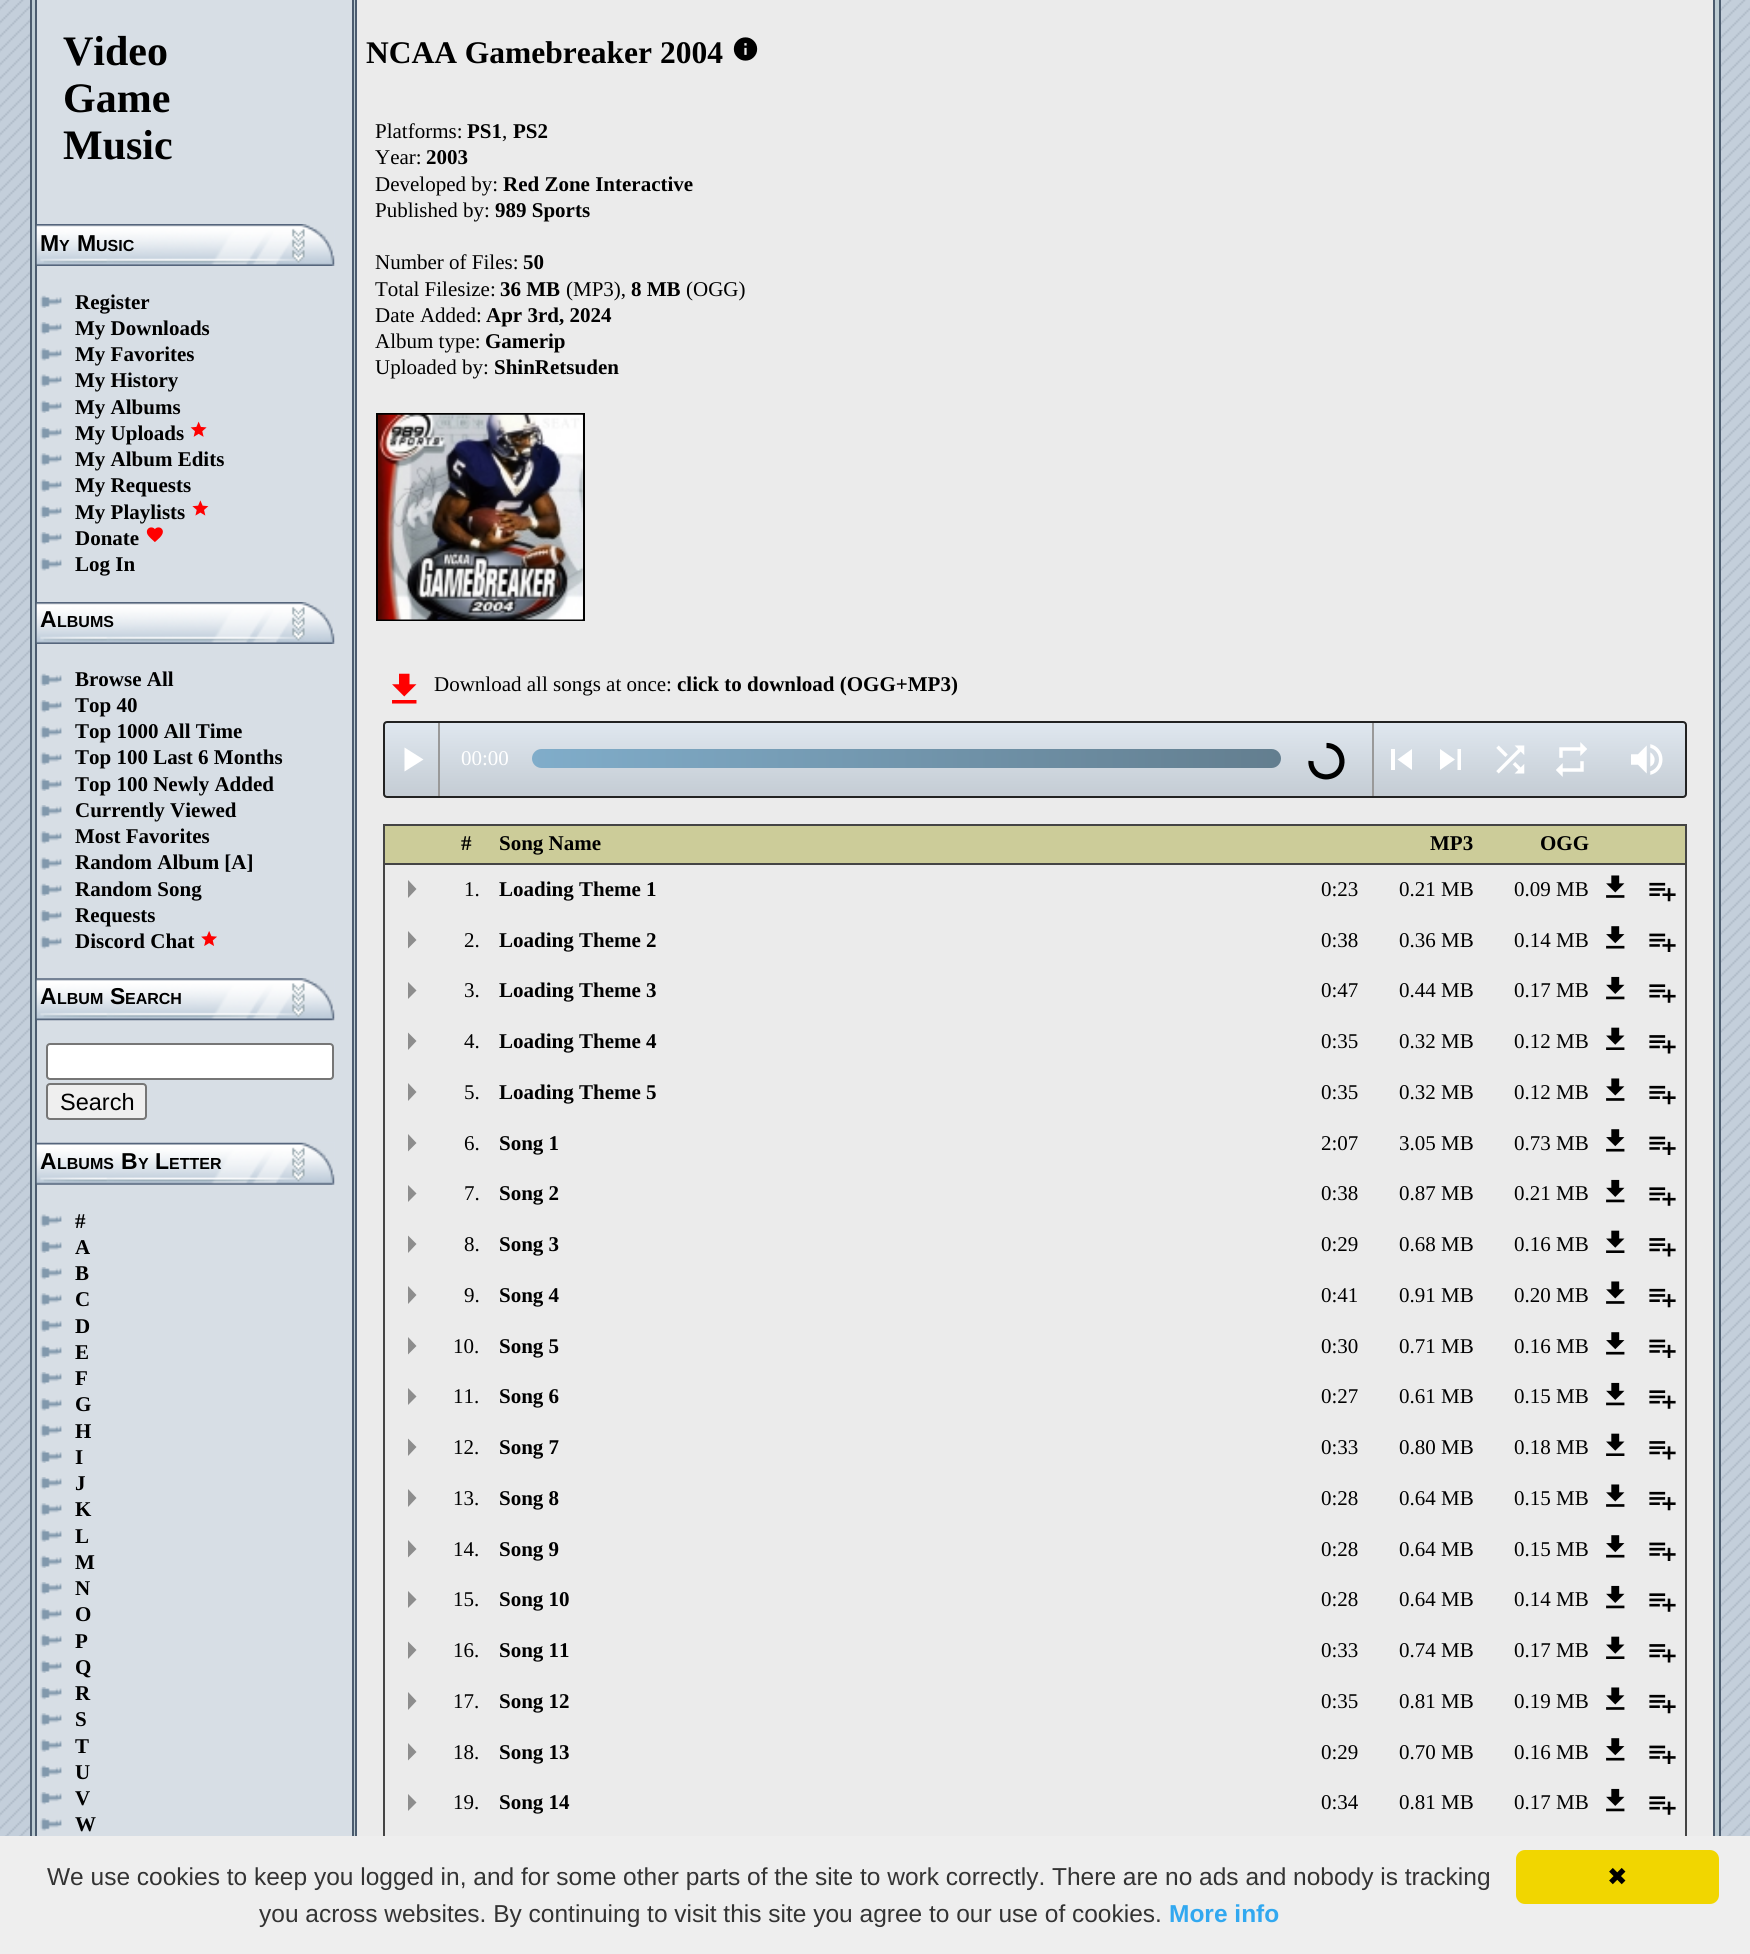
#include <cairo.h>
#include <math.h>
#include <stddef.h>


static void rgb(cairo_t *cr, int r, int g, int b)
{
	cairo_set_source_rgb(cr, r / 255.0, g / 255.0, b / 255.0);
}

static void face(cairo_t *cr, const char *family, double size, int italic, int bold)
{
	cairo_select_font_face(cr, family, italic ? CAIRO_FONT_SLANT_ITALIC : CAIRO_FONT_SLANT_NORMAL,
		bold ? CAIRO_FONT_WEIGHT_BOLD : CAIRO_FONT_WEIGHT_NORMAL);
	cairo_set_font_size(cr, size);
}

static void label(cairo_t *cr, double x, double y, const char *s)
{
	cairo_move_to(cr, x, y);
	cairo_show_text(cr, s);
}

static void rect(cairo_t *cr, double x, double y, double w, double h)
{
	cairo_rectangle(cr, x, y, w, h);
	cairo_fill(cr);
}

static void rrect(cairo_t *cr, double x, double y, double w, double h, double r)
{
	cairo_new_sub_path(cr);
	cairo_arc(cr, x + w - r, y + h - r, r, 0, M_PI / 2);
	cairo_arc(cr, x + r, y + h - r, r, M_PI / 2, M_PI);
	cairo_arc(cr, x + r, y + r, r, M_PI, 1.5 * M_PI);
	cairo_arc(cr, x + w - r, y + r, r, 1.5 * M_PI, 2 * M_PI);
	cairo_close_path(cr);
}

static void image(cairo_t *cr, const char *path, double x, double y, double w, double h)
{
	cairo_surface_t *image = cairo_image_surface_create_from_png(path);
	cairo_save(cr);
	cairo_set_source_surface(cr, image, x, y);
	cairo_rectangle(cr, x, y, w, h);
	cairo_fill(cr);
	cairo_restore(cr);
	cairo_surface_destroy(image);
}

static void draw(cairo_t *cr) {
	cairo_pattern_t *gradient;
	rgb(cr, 255, 255, 255);
	cairo_paint(cr);
	image(cr, "image0.png", 0, 0, 1750, 1836);
	rgb(cr, 188, 203, 210);
	rect(cr, 32, 0, 1687, 1836);
	rgb(cr, 75, 91, 110);
	rect(cr, 1719, 0, 2, 1836);
	rect(cr, 30, 0, 2, 1836);
	rgb(cr, 215, 222, 229);
	rect(cr, 37, 0, 315, 1836);
	rgb(cr, 75, 91, 110);
	rect(cr, 352, 0, 2, 1836);
	rect(cr, 35, 0, 2, 1836);
	face(cr, "Liberation Serif", 42, 0, 1);
	rgb(cr, 0, 0, 0);
	label(cr, 63, 65, "Video");
	label(cr, 63, 112, "Game");
	label(cr, 63, 159, "Music");
	image(cr, "image1.png", 36, 224, 299, 42);
	face(cr, "Liberation Sans", 23, 0, 1);
	label(cr, 40, 251, "M");
	face(cr, "Liberation Sans", 16, 0, 1);
	label(cr, 59, 251, "Y");
	face(cr, "Liberation Sans", 23, 0, 1);
	label(cr, 77, 251, "M");
	face(cr, "Liberation Sans", 16, 0, 1);
	label(cr, 96, 251, "USIC");
	image(cr, "image2.png", 40, 295, 22, 13);
	face(cr, "Liberation Serif", 21, 0, 1);
	label(cr, 75, 309, "Register");
	image(cr, "image3.png", 40, 322, 22, 13);
	label(cr, 75, 335, "My Downloads");
	image(cr, "image4.png", 40, 348, 22, 13);
	label(cr, 75, 361, "My Favorites");
	image(cr, "image5.png", 40, 374, 22, 13);
	label(cr, 75, 387, "My History");
	image(cr, "image2.png", 40, 400, 22, 13);
	label(cr, 75, 414, "My Albums");
	image(cr, "image3.png", 40, 427, 22, 13);
	label(cr, 75, 440, "My Uploads");
	image(cr, "image6.png", 190, 421, 17, 16);
	image(cr, "image4.png", 40, 453, 22, 13);
	label(cr, 75, 466, "My Album Edits");
	image(cr, "image5.png", 40, 479, 22, 13);
	label(cr, 75, 492, "My Requests");
	image(cr, "image2.png", 40, 505, 22, 13);
	label(cr, 75, 519, "My Playlists");
	image(cr, "image7.png", 192, 500, 17, 16);
	image(cr, "image3.png", 40, 532, 22, 13);
	label(cr, 75, 545, "Donate");
	image(cr, "image8.png", 146, 527, 17, 15);
	image(cr, "image4.png", 40, 558, 22, 13);
	label(cr, 75, 571, "Log In");
	image(cr, "image1.png", 36, 602, 299, 42);
	face(cr, "Liberation Sans", 23, 0, 1);
	label(cr, 40, 627, "A");
	face(cr, "Liberation Sans", 16, 0, 1);
	label(cr, 57, 627, "LBUMS");
	image(cr, "image2.png", 40, 673, 22, 13);
	face(cr, "Liberation Serif", 21, 0, 1);
	label(cr, 75, 686, "Browse All");
	image(cr, "image3.png", 40, 700, 22, 13);
	label(cr, 75, 712, "Top 40");
	image(cr, "image4.png", 40, 726, 22, 13);
	label(cr, 75, 738, "Top 1000 All Time");
	image(cr, "image5.png", 40, 752, 22, 13);
	label(cr, 75, 764, "Top 100 Last 6 Months");
	image(cr, "image2.png", 40, 778, 22, 13);
	label(cr, 75, 791, "Top 100 Newly Added");
	image(cr, "image3.png", 40, 805, 22, 13);
	label(cr, 75, 817, "Currently Viewed");
	image(cr, "image4.png", 40, 831, 22, 13);
	label(cr, 75, 843, "Most Favorites");
	image(cr, "image5.png", 40, 857, 22, 13);
	label(cr, 75, 869, "Random Album [A]");
	image(cr, "image2.png", 40, 883, 22, 13);
	label(cr, 75, 896, "Random Song");
	image(cr, "image3.png", 40, 910, 22, 13);
	label(cr, 75, 922, "Requests");
	image(cr, "image4.png", 40, 936, 22, 13);
	label(cr, 75, 948, "Discord Chat");
	image(cr, "image9.png", 201, 931, 16, 15);
	image(cr, "image10.png", 36, 978, 299, 43);
	face(cr, "Liberation Sans", 23, 0, 1);
	label(cr, 40, 1004, "A");
	face(cr, "Liberation Sans", 16, 0, 1);
	label(cr, 57, 1004, "LBUM");
	face(cr, "Liberation Sans", 23, 0, 1);
	label(cr, 110, 1004, "S");
	face(cr, "Liberation Sans", 16, 0, 1);
	label(cr, 125, 1004, "EARCH");
	rgb(cr, 255, 255, 255);
	rrect(cr, 47, 1044, 286, 35, 3);
	cairo_fill_preserve(cr);
	rgb(cr, 118, 118, 118);
	cairo_stroke(cr);
	rgb(cr, 239, 239, 239);
	rrect(cr, 47, 1084, 99, 35, 3);
	cairo_fill_preserve(cr);
	rgb(cr, 118, 118, 118);
	cairo_stroke(cr);
	face(cr, "Liberation Sans", 23.5, 0, 0);
	rgb(cr, 0, 0, 0);
	label(cr, 60, 1110, "Search");
	image(cr, "image11.png", 36, 1142, 299, 43);
	face(cr, "Liberation Sans", 23, 0, 1);
	label(cr, 40, 1169, "A");
	face(cr, "Liberation Sans", 16, 0, 1);
	label(cr, 57, 1169, "LBUMS");
	face(cr, "Liberation Sans", 23, 0, 1);
	label(cr, 121, 1169, "B");
	face(cr, "Liberation Sans", 16, 0, 1);
	label(cr, 138, 1169, "Y");
	face(cr, "Liberation Sans", 23, 0, 1);
	label(cr, 155, 1169, "L");
	face(cr, "Liberation Sans", 16, 0, 1);
	label(cr, 169, 1169, "ETTER");
	image(cr, "image5.png", 40, 1214, 22, 13);
	face(cr, "Liberation Serif", 21, 0, 1);
	label(cr, 75, 1228, "#");
	image(cr, "image2.png", 40, 1240, 22, 13);
	label(cr, 75, 1254, "A");
	image(cr, "image3.png", 40, 1267, 22, 13);
	label(cr, 75, 1280, "B");
	image(cr, "image4.png", 40, 1293, 22, 13);
	label(cr, 75, 1306, "C");
	image(cr, "image5.png", 40, 1319, 22, 13);
	label(cr, 75, 1333, "D");
	image(cr, "image2.png", 40, 1345, 22, 13);
	label(cr, 75, 1359, "E");
	image(cr, "image3.png", 40, 1372, 22, 13);
	label(cr, 75, 1385, "F");
	image(cr, "image4.png", 40, 1398, 22, 13);
	label(cr, 75, 1411, "G");
	image(cr, "image5.png", 40, 1424, 22, 13);
	label(cr, 75, 1438, "H");
	image(cr, "image2.png", 40, 1450, 22, 13);
	label(cr, 75, 1464, "I");
	image(cr, "image3.png", 40, 1477, 22, 13);
	label(cr, 75, 1490, "J");
	image(cr, "image4.png", 40, 1503, 22, 13);
	label(cr, 75, 1516, "K");
	image(cr, "image5.png", 40, 1529, 22, 13);
	label(cr, 75, 1543, "L");
	image(cr, "image2.png", 40, 1555, 22, 13);
	label(cr, 75, 1569, "M");
	image(cr, "image3.png", 40, 1582, 22, 13);
	label(cr, 75, 1595, "N");
	image(cr, "image4.png", 40, 1608, 22, 13);
	label(cr, 75, 1621, "O");
	image(cr, "image5.png", 40, 1634, 22, 13);
	label(cr, 75, 1648, "P");
	image(cr, "image2.png", 40, 1660, 22, 13);
	label(cr, 75, 1674, "Q");
	image(cr, "image3.png", 40, 1687, 22, 13);
	label(cr, 75, 1700, "R");
	image(cr, "image4.png", 40, 1713, 22, 13);
	label(cr, 75, 1726, "S");
	image(cr, "image5.png", 40, 1739, 22, 13);
	label(cr, 75, 1753, "T");
	image(cr, "image2.png", 40, 1765, 22, 13);
	label(cr, 75, 1779, "U");
	image(cr, "image3.png", 40, 1792, 22, 13);
	label(cr, 75, 1805, "V");
	image(cr, "image4.png", 40, 1818, 22, 13);
	label(cr, 75, 1831, "W");
	rgb(cr, 75, 91, 110);
	rect(cr, 1713, 0, 2, 1836);
	rgb(cr, 235, 235, 235);
	rect(cr, 357, 0, 1356, 1836);
	rgb(cr, 75, 91, 110);
	rect(cr, 355, 0, 2, 1836);
	face(cr, "Liberation Serif", 31.5, 0, 1);
	rgb(cr, 0, 0, 0);
	label(cr, 366, 63, "NCAA Gamebreaker 2004");
	image(cr, "image12.png", 733, 37, 25, 24);
	face(cr, "Liberation Serif", 21, 0, 0);
	label(cr, 375, 138, "Platforms:");
	face(cr, "Liberation Serif", 21, 0, 1);
	label(cr, 467, 138, "PS1");
	face(cr, "Liberation Serif", 21, 0, 0);
	label(cr, 502, 138, ",");
	face(cr, "Liberation Serif", 21, 0, 1);
	label(cr, 513, 138, "PS2");
	face(cr, "Liberation Serif", 21, 0, 0);
	label(cr, 375, 164, "Year:");
	face(cr, "Liberation Serif", 21, 0, 1);
	label(cr, 426, 164, "2003");
	face(cr, "Liberation Serif", 21, 0, 0);
	label(cr, 375, 191, "Developed by:");
	face(cr, "Liberation Serif", 21, 0, 1);
	label(cr, 503, 191, "Red Zone Interactive");
	face(cr, "Liberation Serif", 21, 0, 0);
	label(cr, 375, 217, "Published by:");
	face(cr, "Liberation Serif", 21, 0, 1);
	label(cr, 495, 217, "989 Sports");
	face(cr, "Liberation Serif", 21, 0, 0);
	label(cr, 375, 269, "Number of Files:");
	face(cr, "Liberation Serif", 21, 0, 1);
	label(cr, 523, 269, "50");
	face(cr, "Liberation Serif", 21, 0, 0);
	label(cr, 375, 296, "Total Filesize:");
	face(cr, "Liberation Serif", 21, 0, 1);
	label(cr, 500, 296, "36 MB");
	face(cr, "Liberation Serif", 21, 0, 0);
	label(cr, 566, 296, "(MP3),");
	face(cr, "Liberation Serif", 21, 0, 1);
	label(cr, 631, 296, "8 MB");
	face(cr, "Liberation Serif", 21, 0, 0);
	label(cr, 686, 296, "(OGG)");
	label(cr, 375, 322, "Date Added:");
	face(cr, "Liberation Serif", 21, 0, 1);
	label(cr, 486, 322, "Apr 3rd, 2024");
	face(cr, "Liberation Serif", 21, 0, 0);
	label(cr, 375, 348, "Album type:");
	face(cr, "Liberation Serif", 21, 0, 1);
	label(cr, 485, 348, "Gamerip");
	face(cr, "Liberation Serif", 21, 0, 0);
	label(cr, 375, 374, "Uploaded by:");
	face(cr, "Liberation Serif", 21, 0, 1);
	label(cr, 494, 374, "ShinRetsuden");
	cairo_rectangle(cr, 377, 414, 207, 206);
	cairo_stroke(cr);
	image(cr, "image13.png", 378, 414, 205, 206);
	image(cr, "image14.png", 392, 673, 25, 31);
	face(cr, "Liberation Serif", 21, 0, 0);
	label(cr, 434, 691, "Download all songs at once:");
	face(cr, "Liberation Serif", 21, 0, 1);
	label(cr, 677, 691, "click to download (OGG+MP3)");
	cairo_save(cr);
	rrect(cr, 383, 721, 1304, 77, 4);
	cairo_clip(cr);
	gradient = cairo_pattern_create_linear(1035, 723, 1035, 796);
	cairo_pattern_add_color_stop_rgba(gradient, 0, 0.875, 0.906, 0.937, 1);
	cairo_pattern_add_color_stop_rgba(gradient, 1, 0.769, 0.8, 0.831, 1);
	cairo_set_source(cr, gradient);
	cairo_pattern_destroy(gradient);
	rect(cr, 383, 723, 1304, 73);
	cairo_restore(cr);
	rrect(cr, 384, 722, 1302, 75, 3);
	rgb(cr, 34, 34, 34);
	cairo_stroke(cr);
	rgb(cr, 153, 153, 153);
	rect(cr, 438, 723, 2, 73);
	rgb(cr, 255, 255, 255);
	cairo_new_path(cr);
	cairo_move_to(cr, 404.5, 747.5);
	cairo_line_to(cr, 423.5, 759.5);
	cairo_line_to(cr, 404.5, 771.5);
	cairo_close_path(cr);
	cairo_fill(cr);
	face(cr, "Liberation Serif", 21, 0, 0);
	label(cr, 461, 765, "00:00");
	gradient = cairo_pattern_create_linear(532, 759, 1281, 759);
	cairo_pattern_add_color_stop_rgba(gradient, 0, 0.502, 0.678, 0.792, 1);
	cairo_pattern_add_color_stop_rgba(gradient, 1, 0.388, 0.494, 0.561, 1);
	cairo_set_source(cr, gradient);
	cairo_pattern_destroy(gradient);
	rrect(cr, 532, 749, 749, 19, 9.5);
	cairo_fill(cr);
	rgb(cr, 153, 153, 153);
	rect(cr, 1372, 723, 2, 73);
	cairo_new_path(cr);
	cairo_move_to(cr, 1326.5, 745.5);
	cairo_curve_to(cr, 1345, 745.5, 1348, 773, 1329.5, 776.5);
	cairo_curve_to(cr, 1325.5, 777.5, 1321, 776.5, 1317.5, 774.5);
	cairo_curve_to(cr, 1313.5, 771.5, 1310.5, 766.5, 1311, 761);
	rgb(cr, 0, 0, 0);
	cairo_set_line_width(cr, 5.2);
	cairo_stroke(cr);
	rgb(cr, 255, 255, 255);
	cairo_new_path(cr);
	cairo_move_to(cr, 1397.5, 759.5);
	cairo_line_to(cr, 1412, 749);
	cairo_line_to(cr, 1412, 770);
	cairo_close_path(cr);
	cairo_move_to(cr, 1391, 749);
	cairo_line_to(cr, 1395, 749);
	cairo_line_to(cr, 1395, 770);
	cairo_line_to(cr, 1391, 770);
	cairo_close_path(cr);
	cairo_fill(cr);
	cairo_new_path(cr);
	cairo_move_to(cr, 1457.5, 749);
	cairo_line_to(cr, 1461, 749);
	cairo_line_to(cr, 1461, 770);
	cairo_line_to(cr, 1457.5, 770);
	cairo_close_path(cr);
	cairo_move_to(cr, 1440, 770);
	cairo_line_to(cr, 1440, 749);
	cairo_line_to(cr, 1455, 759.5);
	cairo_close_path(cr);
	cairo_fill(cr);
	image(cr, "image15.png", 1496, 745, 29, 29);
	image(cr, "image16.png", 1556, 742, 31, 35);
	image(cr, "image17.png", 1631, 744, 32, 31);
	rgb(cr, 68, 68, 68);
	rect(cr, 383, 824, 1304, 2);
	rect(cr, 1685, 824, 2, 1012);
	rect(cr, 383, 824, 2, 1012);
	rgb(cr, 204, 204, 153);
	rect(cr, 385, 826, 1300, 37);
	face(cr, "Liberation Serif", 21, 0, 1);
	rgb(cr, 0, 0, 0);
	label(cr, 461, 850, "#");
	label(cr, 499, 850, "Song Name");
	label(cr, 1430, 850, "MP3");
	label(cr, 1540, 850, "OGG");
	rgb(cr, 68, 68, 68);
	rect(cr, 383, 863, 1304, 2);
	rgb(cr, 141, 141, 141);
	cairo_new_path(cr);
	cairo_move_to(cr, 408, 898);
	cairo_line_to(cr, 408, 880);
	cairo_line_to(cr, 416.5, 889);
	cairo_close_path(cr);
	cairo_fill(cr);
	face(cr, "Liberation Serif", 21, 0, 0);
	rgb(cr, 0, 0, 0);
	label(cr, 464, 896, "1.");
	face(cr, "Liberation Serif", 21, 0, 1);
	label(cr, 499, 896, "Loading Theme 1");
	face(cr, "Liberation Serif", 21, 0, 0);
	label(cr, 1321, 896, "0:23");
	label(cr, 1399, 896, "0.21 MB");
	label(cr, 1514, 896, "0.09 MB");
	image(cr, "image18.png", 1606, 875, 19, 23);
	image(cr, "image19.png", 1649, 882, 27, 20);
	rgb(cr, 141, 141, 141);
	cairo_new_path(cr);
	cairo_move_to(cr, 408, 948.5);
	cairo_line_to(cr, 408, 931);
	cairo_line_to(cr, 416.5, 940);
	cairo_close_path(cr);
	cairo_fill(cr);
	rgb(cr, 0, 0, 0);
	label(cr, 464, 947, "2.");
	face(cr, "Liberation Serif", 21, 0, 1);
	label(cr, 499, 947, "Loading Theme 2");
	face(cr, "Liberation Serif", 21, 0, 0);
	label(cr, 1321, 947, "0:38");
	label(cr, 1399, 947, "0.36 MB");
	label(cr, 1514, 947, "0.14 MB");
	image(cr, "image20.png", 1606, 926, 19, 23);
	image(cr, "image21.png", 1649, 933, 27, 19);
	rgb(cr, 141, 141, 141);
	cairo_new_path(cr);
	cairo_move_to(cr, 408, 999);
	cairo_line_to(cr, 408, 982);
	cairo_line_to(cr, 416.5, 990.5);
	cairo_close_path(cr);
	cairo_fill(cr);
	rgb(cr, 0, 0, 0);
	label(cr, 464, 997, "3.");
	face(cr, "Liberation Serif", 21, 0, 1);
	label(cr, 499, 997, "Loading Theme 3");
	face(cr, "Liberation Serif", 21, 0, 0);
	label(cr, 1321, 997, "0:47");
	label(cr, 1399, 997, "0.44 MB");
	label(cr, 1514, 997, "0.17 MB");
	image(cr, "image22.png", 1606, 976, 19, 24);
	image(cr, "image23.png", 1649, 984, 27, 19);
	rgb(cr, 141, 141, 141);
	cairo_new_path(cr);
	cairo_move_to(cr, 408, 1050);
	cairo_line_to(cr, 408, 1032.5);
	cairo_line_to(cr, 416.5, 1041);
	cairo_close_path(cr);
	cairo_fill(cr);
	rgb(cr, 0, 0, 0);
	label(cr, 464, 1048, "4.");
	face(cr, "Liberation Serif", 21, 0, 1);
	label(cr, 499, 1048, "Loading Theme 4");
	face(cr, "Liberation Serif", 21, 0, 0);
	label(cr, 1321, 1048, "0:35");
	label(cr, 1399, 1048, "0.32 MB");
	label(cr, 1514, 1048, "0.12 MB");
	image(cr, "image24.png", 1606, 1027, 19, 23);
	image(cr, "image25.png", 1649, 1035, 27, 19);
	rgb(cr, 141, 141, 141);
	cairo_new_path(cr);
	cairo_move_to(cr, 408, 1101);
	cairo_line_to(cr, 408, 1083);
	cairo_line_to(cr, 416.5, 1092);
	cairo_close_path(cr);
	cairo_fill(cr);
	rgb(cr, 0, 0, 0);
	label(cr, 464, 1099, "5.");
	face(cr, "Liberation Serif", 21, 0, 1);
	label(cr, 499, 1099, "Loading Theme 5");
	face(cr, "Liberation Serif", 21, 0, 0);
	label(cr, 1321, 1099, "0:35");
	label(cr, 1399, 1099, "0.32 MB");
	label(cr, 1514, 1099, "0.12 MB");
	image(cr, "image18.png", 1606, 1078, 19, 23);
	image(cr, "image19.png", 1649, 1085, 27, 20);
	rgb(cr, 141, 141, 141);
	cairo_new_path(cr);
	cairo_move_to(cr, 408, 1151.5);
	cairo_line_to(cr, 408, 1134);
	cairo_line_to(cr, 416.5, 1143);
	cairo_close_path(cr);
	cairo_fill(cr);
	rgb(cr, 0, 0, 0);
	label(cr, 464, 1150, "6.");
	face(cr, "Liberation Serif", 21, 0, 1);
	label(cr, 499, 1150, "Song 1");
	face(cr, "Liberation Serif", 21, 0, 0);
	label(cr, 1321, 1150, "2:07");
	label(cr, 1399, 1150, "3.05 MB");
	label(cr, 1514, 1150, "0.73 MB");
	image(cr, "image20.png", 1606, 1129, 19, 23);
	image(cr, "image21.png", 1649, 1136, 27, 19);
	rgb(cr, 141, 141, 141);
	cairo_new_path(cr);
	cairo_move_to(cr, 408, 1202);
	cairo_line_to(cr, 408, 1185);
	cairo_line_to(cr, 416.5, 1193.5);
	cairo_close_path(cr);
	cairo_fill(cr);
	rgb(cr, 0, 0, 0);
	label(cr, 464, 1200, "7.");
	face(cr, "Liberation Serif", 21, 0, 1);
	label(cr, 499, 1200, "Song 2");
	face(cr, "Liberation Serif", 21, 0, 0);
	label(cr, 1321, 1200, "0:38");
	label(cr, 1399, 1200, "0.87 MB");
	label(cr, 1514, 1200, "0.21 MB");
	image(cr, "image22.png", 1606, 1179, 19, 24);
	image(cr, "image23.png", 1649, 1187, 27, 19);
	rgb(cr, 141, 141, 141);
	cairo_new_path(cr);
	cairo_move_to(cr, 408, 1253);
	cairo_line_to(cr, 408, 1235.5);
	cairo_line_to(cr, 416.5, 1244);
	cairo_close_path(cr);
	cairo_fill(cr);
	rgb(cr, 0, 0, 0);
	label(cr, 464, 1251, "8.");
	face(cr, "Liberation Serif", 21, 0, 1);
	label(cr, 499, 1251, "Song 3");
	face(cr, "Liberation Serif", 21, 0, 0);
	label(cr, 1321, 1251, "0:29");
	label(cr, 1399, 1251, "0.68 MB");
	label(cr, 1514, 1251, "0.16 MB");
	image(cr, "image24.png", 1606, 1230, 19, 23);
	image(cr, "image25.png", 1649, 1238, 27, 19);
	rgb(cr, 141, 141, 141);
	cairo_new_path(cr);
	cairo_move_to(cr, 408, 1304);
	cairo_line_to(cr, 408, 1286);
	cairo_line_to(cr, 416.5, 1295);
	cairo_close_path(cr);
	cairo_fill(cr);
	rgb(cr, 0, 0, 0);
	label(cr, 464, 1302, "9.");
	face(cr, "Liberation Serif", 21, 0, 1);
	label(cr, 499, 1302, "Song 4");
	face(cr, "Liberation Serif", 21, 0, 0);
	label(cr, 1321, 1302, "0:41");
	label(cr, 1399, 1302, "0.91 MB");
	label(cr, 1514, 1302, "0.20 MB");
	image(cr, "image18.png", 1606, 1281, 19, 23);
	image(cr, "image19.png", 1649, 1288, 27, 20);
	rgb(cr, 141, 141, 141);
	cairo_new_path(cr);
	cairo_move_to(cr, 408, 1354.5);
	cairo_line_to(cr, 408, 1337);
	cairo_line_to(cr, 416.5, 1346);
	cairo_close_path(cr);
	cairo_fill(cr);
	rgb(cr, 0, 0, 0);
	label(cr, 453, 1353, "10.");
	face(cr, "Liberation Serif", 21, 0, 1);
	label(cr, 499, 1353, "Song 5");
	face(cr, "Liberation Serif", 21, 0, 0);
	label(cr, 1321, 1353, "0:30");
	label(cr, 1399, 1353, "0.71 MB");
	label(cr, 1514, 1353, "0.16 MB");
	image(cr, "image20.png", 1606, 1332, 19, 23);
	image(cr, "image21.png", 1649, 1339, 27, 19);
	rgb(cr, 141, 141, 141);
	cairo_new_path(cr);
	cairo_move_to(cr, 408, 1405);
	cairo_line_to(cr, 408, 1388);
	cairo_line_to(cr, 416.5, 1396.5);
	cairo_close_path(cr);
	cairo_fill(cr);
	rgb(cr, 0, 0, 0);
	label(cr, 453, 1403, "11.");
	face(cr, "Liberation Serif", 21, 0, 1);
	label(cr, 499, 1403, "Song 6");
	face(cr, "Liberation Serif", 21, 0, 0);
	label(cr, 1321, 1403, "0:27");
	label(cr, 1399, 1403, "0.61 MB");
	label(cr, 1514, 1403, "0.15 MB");
	image(cr, "image22.png", 1606, 1382, 19, 24);
	image(cr, "image23.png", 1649, 1390, 27, 19);
	rgb(cr, 141, 141, 141);
	cairo_new_path(cr);
	cairo_move_to(cr, 408, 1456);
	cairo_line_to(cr, 408, 1438.5);
	cairo_line_to(cr, 416.5, 1447);
	cairo_close_path(cr);
	cairo_fill(cr);
	rgb(cr, 0, 0, 0);
	label(cr, 453, 1454, "12.");
	face(cr, "Liberation Serif", 21, 0, 1);
	label(cr, 499, 1454, "Song 7");
	face(cr, "Liberation Serif", 21, 0, 0);
	label(cr, 1321, 1454, "0:33");
	label(cr, 1399, 1454, "0.80 MB");
	label(cr, 1514, 1454, "0.18 MB");
	image(cr, "image24.png", 1606, 1433, 19, 23);
	image(cr, "image25.png", 1649, 1441, 27, 19);
	rgb(cr, 141, 141, 141);
	cairo_new_path(cr);
	cairo_move_to(cr, 408, 1507);
	cairo_line_to(cr, 408, 1489);
	cairo_line_to(cr, 416.5, 1498);
	cairo_close_path(cr);
	cairo_fill(cr);
	rgb(cr, 0, 0, 0);
	label(cr, 453, 1505, "13.");
	face(cr, "Liberation Serif", 21, 0, 1);
	label(cr, 499, 1505, "Song 8");
	face(cr, "Liberation Serif", 21, 0, 0);
	label(cr, 1321, 1505, "0:28");
	label(cr, 1399, 1505, "0.64 MB");
	label(cr, 1514, 1505, "0.15 MB");
	image(cr, "image18.png", 1606, 1484, 19, 23);
	image(cr, "image19.png", 1649, 1491, 27, 20);
	rgb(cr, 141, 141, 141);
	cairo_new_path(cr);
	cairo_move_to(cr, 408, 1557.5);
	cairo_line_to(cr, 408, 1540);
	cairo_line_to(cr, 416.5, 1549);
	cairo_close_path(cr);
	cairo_fill(cr);
	rgb(cr, 0, 0, 0);
	label(cr, 453, 1556, "14.");
	face(cr, "Liberation Serif", 21, 0, 1);
	label(cr, 499, 1556, "Song 9");
	face(cr, "Liberation Serif", 21, 0, 0);
	label(cr, 1321, 1556, "0:28");
	label(cr, 1399, 1556, "0.64 MB");
	label(cr, 1514, 1556, "0.15 MB");
	image(cr, "image20.png", 1606, 1535, 19, 23);
	image(cr, "image21.png", 1649, 1542, 27, 19);
	rgb(cr, 141, 141, 141);
	cairo_new_path(cr);
	cairo_move_to(cr, 408, 1608);
	cairo_line_to(cr, 408, 1591);
	cairo_line_to(cr, 416.5, 1599.5);
	cairo_close_path(cr);
	cairo_fill(cr);
	rgb(cr, 0, 0, 0);
	label(cr, 453, 1606, "15.");
	face(cr, "Liberation Serif", 21, 0, 1);
	label(cr, 499, 1606, "Song 10");
	face(cr, "Liberation Serif", 21, 0, 0);
	label(cr, 1321, 1606, "0:28");
	label(cr, 1399, 1606, "0.64 MB");
	label(cr, 1514, 1606, "0.14 MB");
	image(cr, "image22.png", 1606, 1585, 19, 24);
	image(cr, "image23.png", 1649, 1593, 27, 19);
	rgb(cr, 141, 141, 141);
	cairo_new_path(cr);
	cairo_move_to(cr, 408, 1659);
	cairo_line_to(cr, 408, 1641.5);
	cairo_line_to(cr, 416.5, 1650);
	cairo_close_path(cr);
	cairo_fill(cr);
	rgb(cr, 0, 0, 0);
	label(cr, 453, 1657, "16.");
	face(cr, "Liberation Serif", 21, 0, 1);
	label(cr, 499, 1657, "Song 11");
	face(cr, "Liberation Serif", 21, 0, 0);
	label(cr, 1321, 1657, "0:33");
	label(cr, 1399, 1657, "0.74 MB");
	label(cr, 1514, 1657, "0.17 MB");
	image(cr, "image24.png", 1606, 1636, 19, 23);
	image(cr, "image25.png", 1649, 1644, 27, 19);
	rgb(cr, 141, 141, 141);
	cairo_new_path(cr);
	cairo_move_to(cr, 408, 1710);
	cairo_line_to(cr, 408, 1692);
	cairo_line_to(cr, 416.5, 1701);
	cairo_close_path(cr);
	cairo_fill(cr);
	rgb(cr, 0, 0, 0);
	label(cr, 453, 1708, "17.");
	face(cr, "Liberation Serif", 21, 0, 1);
	label(cr, 499, 1708, "Song 12");
	face(cr, "Liberation Serif", 21, 0, 0);
	label(cr, 1321, 1708, "0:35");
	label(cr, 1399, 1708, "0.81 MB");
	label(cr, 1514, 1708, "0.19 MB");
	image(cr, "image18.png", 1606, 1687, 19, 23);
	image(cr, "image19.png", 1649, 1694, 27, 20);
	rgb(cr, 141, 141, 141);
	cairo_new_path(cr);
	cairo_move_to(cr, 408, 1760.5);
	cairo_line_to(cr, 408, 1743);
	cairo_line_to(cr, 416.5, 1752);
	cairo_close_path(cr);
	cairo_fill(cr);
	rgb(cr, 0, 0, 0);
	label(cr, 453, 1759, "18.");
	face(cr, "Liberation Serif", 21, 0, 1);
	label(cr, 499, 1759, "Song 13");
	face(cr, "Liberation Serif", 21, 0, 0);
	label(cr, 1321, 1759, "0:29");
	label(cr, 1399, 1759, "0.70 MB");
	label(cr, 1514, 1759, "0.16 MB");
	image(cr, "image20.png", 1606, 1738, 19, 23);
	image(cr, "image21.png", 1649, 1745, 27, 19);
	rgb(cr, 141, 141, 141);
	cairo_new_path(cr);
	cairo_move_to(cr, 408, 1811);
	cairo_line_to(cr, 408, 1794);
	cairo_line_to(cr, 416.5, 1802.5);
	cairo_close_path(cr);
	cairo_fill(cr);
	rgb(cr, 0, 0, 0);
	label(cr, 453, 1809, "19.");
	face(cr, "Liberation Serif", 21, 0, 1);
	label(cr, 499, 1809, "Song 14");
	face(cr, "Liberation Serif", 21, 0, 0);
	label(cr, 1321, 1809, "0:34");
	label(cr, 1399, 1809, "0.81 MB");
	label(cr, 1514, 1809, "0.17 MB");
	image(cr, "image22.png", 1606, 1788, 19, 24);
	image(cr, "image23.png", 1649, 1796, 27, 19);
	rgb(cr, 238, 238, 238);
	rect(cr, 0, 1836, 1750, 118);
	face(cr, "Liberation Sans", 24.5, 0, 0);
	rgb(cr, 51, 51, 51);
	label(cr, 47, 1885, "We use cookies to keep you logged in, and for some other parts of the site to work correctly. There are no ads and nobody is tracking");
	label(cr, 259, 1922, "you across websites. By continuing to visit this site you agree to our use of cookies.");
	face(cr, "Liberation Sans", 24.5, 0, 1);
	rgb(cr, 49, 168, 240);
	label(cr, 1169, 1922, "More info");
	rgb(cr, 241, 214, 0);
	rrect(cr, 1516, 1850, 203, 54, 9);
	cairo_fill(cr);
	face(cr, "DejaVu Sans", 24.5, 0, 0);
	rgb(cr, 0, 0, 0);
	label(cr, 1607, 1885, "✖");
}

int main(void) {
	cairo_surface_t *surface = cairo_image_surface_create(CAIRO_FORMAT_RGB24, 1750, 1954);
	cairo_t *cr = cairo_create(surface);
	cairo_font_options_t *options = cairo_font_options_create();
	cairo_font_options_set_hint_metrics(options, CAIRO_HINT_METRICS_OFF);
	cairo_font_options_set_hint_style(options, CAIRO_HINT_STYLE_NONE);
	cairo_set_font_options(cr, options);
	cairo_set_miter_limit(cr, 4);
	draw(cr);
	cairo_surface_write_to_png(surface, "render.png");
	cairo_font_options_destroy(options);
	cairo_destroy(cr);
	cairo_surface_destroy(surface);
	return 0;
}
